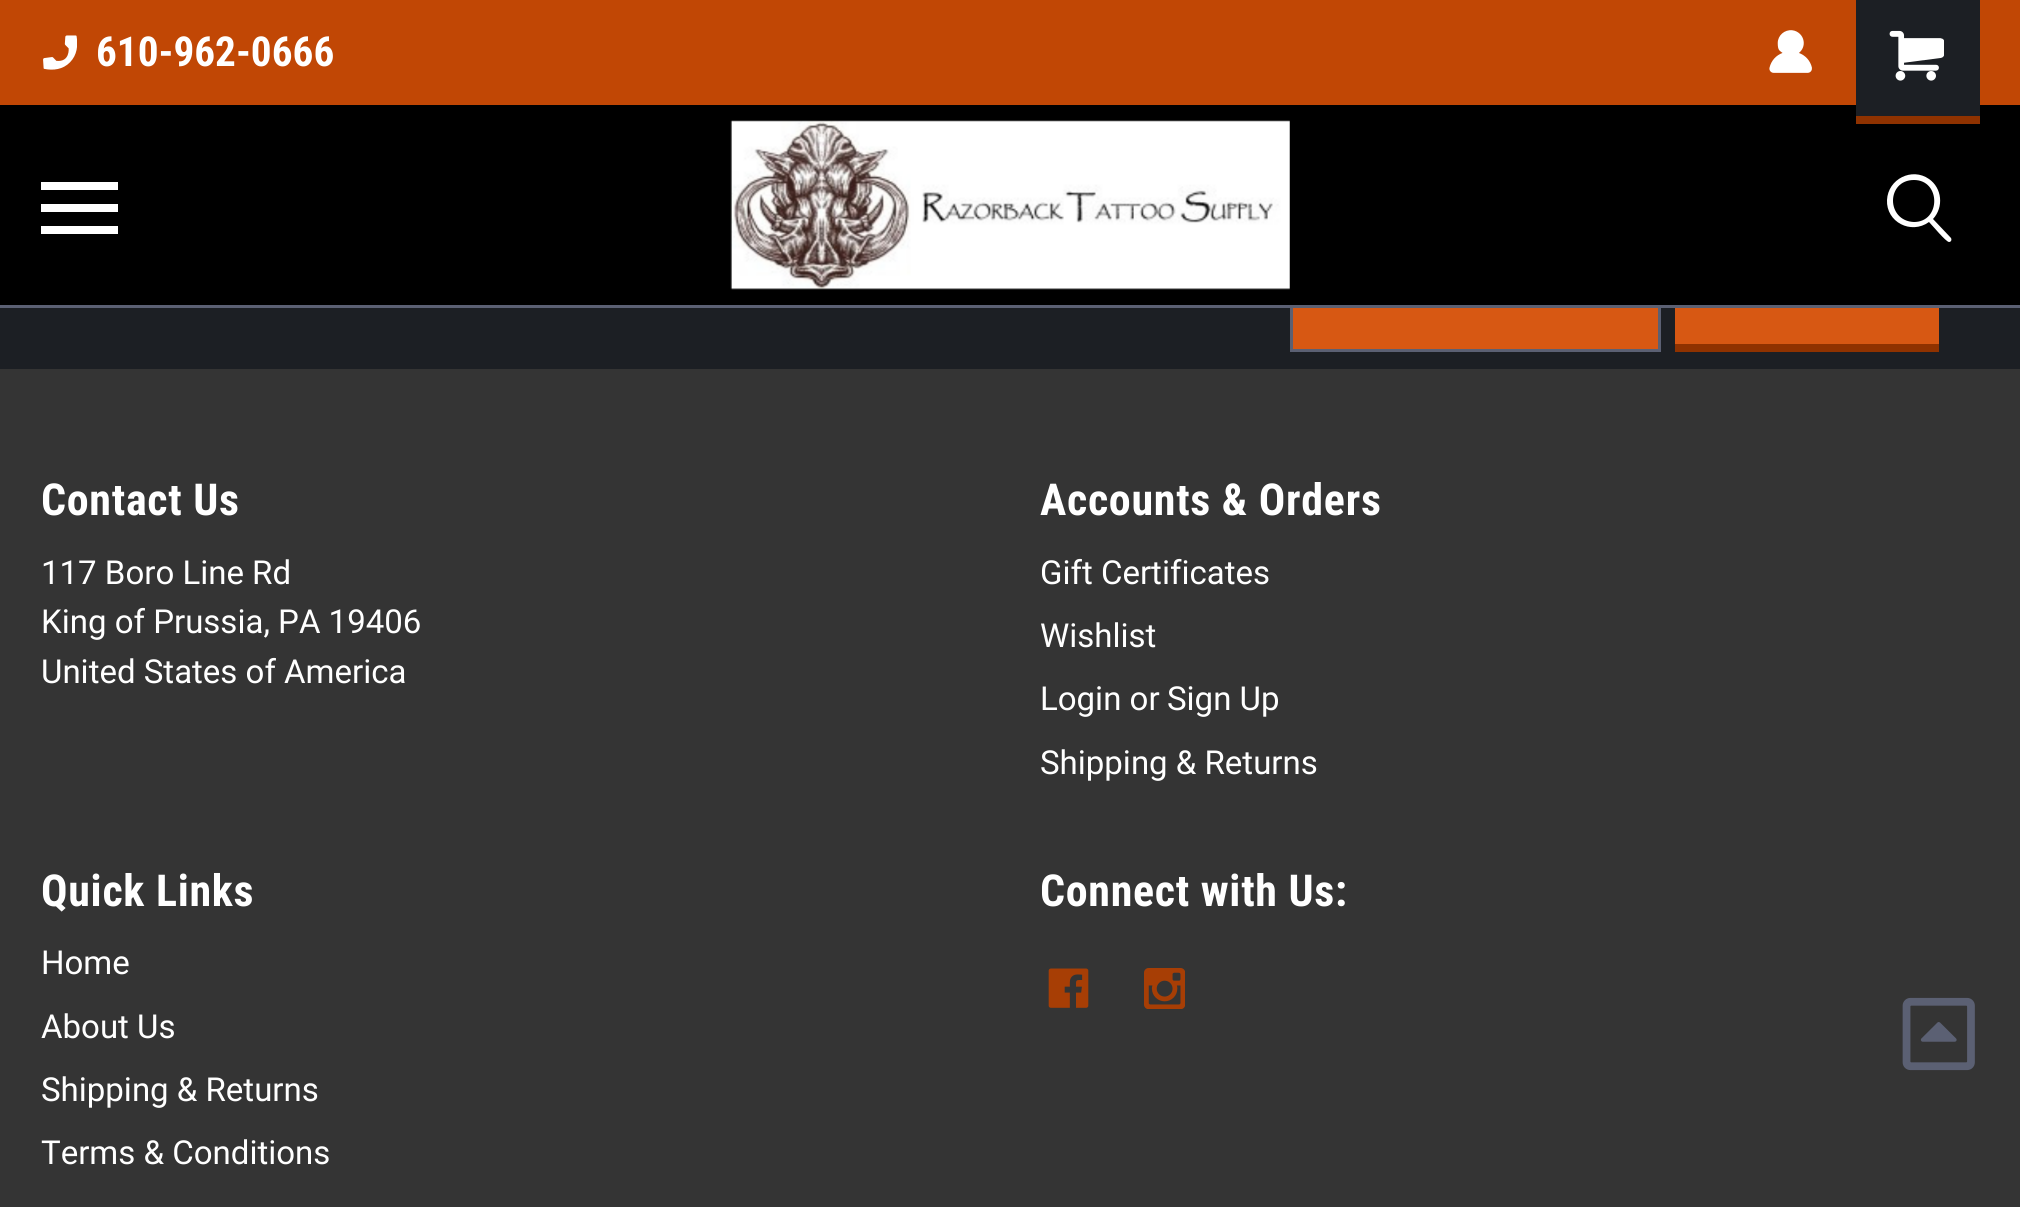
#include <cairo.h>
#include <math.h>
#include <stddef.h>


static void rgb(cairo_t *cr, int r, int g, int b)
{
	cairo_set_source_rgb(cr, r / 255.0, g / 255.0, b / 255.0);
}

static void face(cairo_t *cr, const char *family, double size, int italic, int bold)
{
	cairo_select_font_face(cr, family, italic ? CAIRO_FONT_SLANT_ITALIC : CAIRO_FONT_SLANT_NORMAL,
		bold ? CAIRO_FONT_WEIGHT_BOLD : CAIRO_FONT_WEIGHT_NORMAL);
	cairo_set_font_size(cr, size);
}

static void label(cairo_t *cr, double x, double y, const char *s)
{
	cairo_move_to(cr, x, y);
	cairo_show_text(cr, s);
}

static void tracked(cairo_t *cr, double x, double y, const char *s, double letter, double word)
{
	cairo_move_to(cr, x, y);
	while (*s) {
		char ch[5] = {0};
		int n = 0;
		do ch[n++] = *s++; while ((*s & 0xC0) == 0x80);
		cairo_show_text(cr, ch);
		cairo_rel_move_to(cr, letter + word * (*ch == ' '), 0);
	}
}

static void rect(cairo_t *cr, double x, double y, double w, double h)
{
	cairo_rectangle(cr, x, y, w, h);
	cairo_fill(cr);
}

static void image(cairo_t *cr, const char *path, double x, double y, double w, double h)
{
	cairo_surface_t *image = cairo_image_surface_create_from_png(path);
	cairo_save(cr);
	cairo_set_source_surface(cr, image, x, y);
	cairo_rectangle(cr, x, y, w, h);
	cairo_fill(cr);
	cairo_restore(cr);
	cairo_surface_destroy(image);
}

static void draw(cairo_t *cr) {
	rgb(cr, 52, 52, 52);
	cairo_paint(cr);
	rgb(cr, 28, 31, 36);
	rect(cr, 0, 308, 2020, 61);
	rgb(cr, 215, 88, 19);
	rect(cr, 1293, 308, 365, 41);
	cairo_rectangle(cr, 1291.5, 265.5, 368, 85);
	rgb(cr, 91, 96, 115);
	cairo_set_line_width(cr, 3);
	cairo_stroke(cr);
	rect(cr, 0, 305, 2020, 3);
	rgb(cr, 193, 71, 5);
	rect(cr, 0, 0, 2020, 105);
	image(cr, "image0.png", 43, 35, 34, 35);
	face(cr, "Roboto Condensed", 41.25, 0, 1);
	rgb(cr, 255, 255, 255);
	label(cr, 96, 66, "610-962-0666");
	image(cr, "image1.png", 1769, 30, 43, 43);
	rgb(cr, 0, 0, 0);
	rect(cr, 0, 105, 2020, 200);
	rgb(cr, 28, 31, 36);
	rect(cr, 1856, 0, 124, 116);
	rgb(cr, 143, 50, 0);
	rect(cr, 1856, 116, 124, 8);
	image(cr, "image2.png", 1889, 30, 55, 51);
	rgb(cr, 255, 255, 255);
	rect(cr, 41, 204, 77, 8);
	rect(cr, 41, 182, 77, 8);
	rect(cr, 41, 226, 77, 8);
	image(cr, "image3.png", 730, 120, 560, 170);
	cairo_new_path(cr);
	cairo_move_to(cr, 1949, 242);
	cairo_curve_to(cr, 1946, 242, 1932, 225, 1929, 222);
	cairo_curve_to(cr, 1911, 235, 1886, 222, 1887, 200);
	cairo_curve_to(cr, 1888, 179, 1912, 167, 1929, 179);
	cairo_curve_to(cr, 1942, 188, 1944, 207, 1933, 219);
	cairo_line_to(cr, 1951, 238);
	cairo_curve_to(cr, 1952, 240, 1951, 242, 1949, 242);
	cairo_close_path(cr);
	cairo_move_to(cr, 1914, 180);
	cairo_curve_to(cr, 1886, 180, 1886, 221, 1914, 222);
	cairo_curve_to(cr, 1941, 222, 1941, 180, 1914, 180);
	cairo_close_path(cr);
	cairo_fill(cr);
	rgb(cr, 215, 88, 19);
	rect(cr, 1675, 308, 264, 36);
	rgb(cr, 143, 50, 0);
	rect(cr, 1675, 344, 264, 8);
	face(cr, "Roboto Condensed", 44, 0, 1);
	rgb(cr, 255, 255, 255);
	tracked(cr, 41, 515, "Contact Us", 0.7, 0);
	face(cr, "Roboto", 33, 0, 0);
	label(cr, 41, 584, "117 Boro Line Rd");
	label(cr, 41, 633, "King of Prussia, PA 19406");
	label(cr, 41, 683, "United States of America");
	face(cr, "Roboto Condensed", 44, 0, 1);
	tracked(cr, 1040, 515, "Accounts & Orders", 0.7, 0);
	face(cr, "Roboto", 33, 0, 0);
	label(cr, 1040, 584, "Gift Certificates");
	label(cr, 1040, 647, "Wishlist");
	label(cr, 1040, 710, "Login or");
	label(cr, 1167, 710, "Sign Up");
	label(cr, 1040, 774, "Shipping & Returns");
	face(cr, "Roboto Condensed", 44, 0, 1);
	tracked(cr, 41, 906, "Quick Links", 0.7, 0);
	face(cr, "Roboto", 33, 0, 0);
	label(cr, 41, 974, "Home");
	label(cr, 41, 1038, "About Us");
	label(cr, 41, 1101, "Shipping & Returns");
	label(cr, 41, 1164, "Terms & Conditions");
	face(cr, "Roboto Condensed", 44, 0, 1);
	tracked(cr, 1040, 906, "Connect with Us:", 0.7, 0);
	image(cr, "image4.png", 1048, 968, 41, 40);
	image(cr, "image5.png", 1144, 968, 41, 41);
	image(cr, "image6.png", 1902, 997, 73, 74);
}

int main(void) {
	cairo_surface_t *surface = cairo_image_surface_create(CAIRO_FORMAT_RGB24, 2020, 1207);
	cairo_t *cr = cairo_create(surface);
	cairo_font_options_t *options = cairo_font_options_create();
	cairo_font_options_set_hint_metrics(options, CAIRO_HINT_METRICS_OFF);
	cairo_font_options_set_hint_style(options, CAIRO_HINT_STYLE_NONE);
	cairo_set_font_options(cr, options);
	cairo_set_miter_limit(cr, 4);
	draw(cr);
	cairo_surface_write_to_png(surface, "render.png");
	cairo_font_options_destroy(options);
	cairo_destroy(cr);
	cairo_surface_destroy(surface);
	return 0;
}
